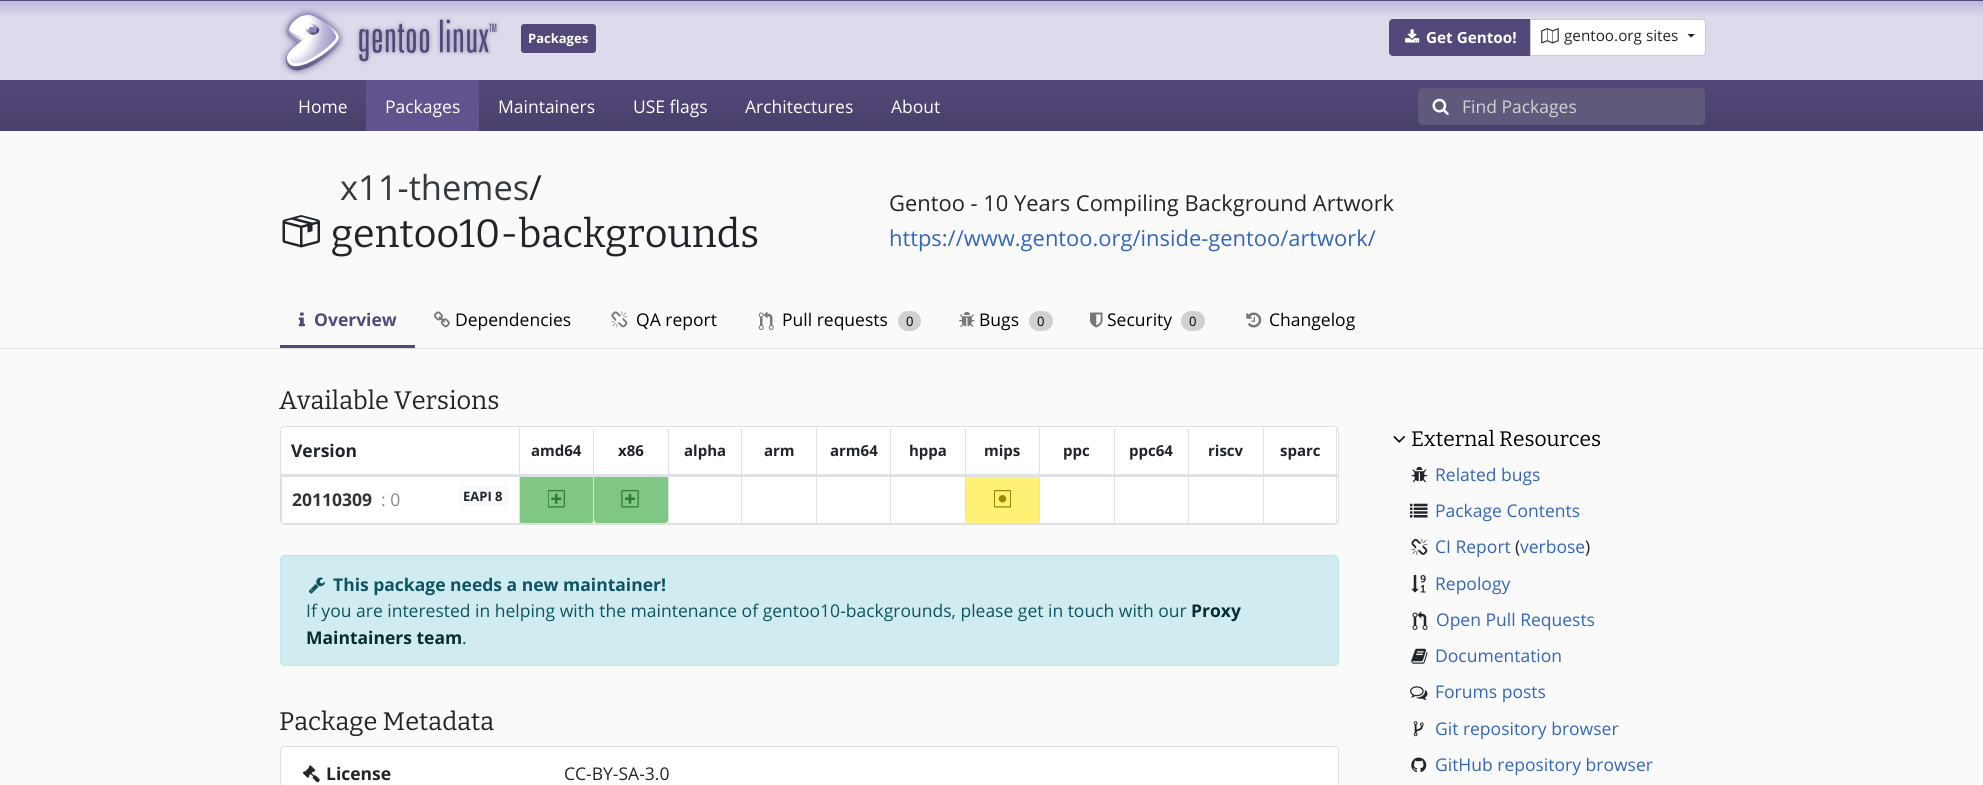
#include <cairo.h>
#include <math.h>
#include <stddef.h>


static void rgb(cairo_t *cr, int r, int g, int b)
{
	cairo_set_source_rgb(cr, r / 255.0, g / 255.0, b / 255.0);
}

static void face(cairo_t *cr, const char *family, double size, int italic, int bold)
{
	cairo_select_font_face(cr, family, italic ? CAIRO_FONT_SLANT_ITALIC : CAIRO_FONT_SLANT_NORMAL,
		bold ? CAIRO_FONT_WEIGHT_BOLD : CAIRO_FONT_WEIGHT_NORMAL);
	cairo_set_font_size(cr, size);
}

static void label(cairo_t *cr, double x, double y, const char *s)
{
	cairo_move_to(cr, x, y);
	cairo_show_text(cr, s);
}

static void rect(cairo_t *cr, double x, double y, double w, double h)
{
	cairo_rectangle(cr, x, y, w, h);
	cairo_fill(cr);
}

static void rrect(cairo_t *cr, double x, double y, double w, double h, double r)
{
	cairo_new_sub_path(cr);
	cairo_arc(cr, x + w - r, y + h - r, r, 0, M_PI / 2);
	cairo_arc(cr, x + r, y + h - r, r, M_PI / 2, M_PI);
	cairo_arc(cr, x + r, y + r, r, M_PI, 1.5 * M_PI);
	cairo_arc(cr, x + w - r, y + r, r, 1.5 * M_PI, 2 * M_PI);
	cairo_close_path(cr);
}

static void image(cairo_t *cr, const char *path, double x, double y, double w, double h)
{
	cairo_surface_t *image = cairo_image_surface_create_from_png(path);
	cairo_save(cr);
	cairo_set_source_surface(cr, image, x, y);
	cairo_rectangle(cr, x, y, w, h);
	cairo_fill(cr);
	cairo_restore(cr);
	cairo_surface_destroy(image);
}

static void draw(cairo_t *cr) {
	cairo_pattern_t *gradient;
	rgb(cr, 250, 250, 250);
	cairo_paint(cr);
	rgb(cr, 84, 72, 122);
	rect(cr, 0, 0, 1983, 1);
	gradient = cairo_pattern_create_linear(992, 1.2, 992, 80);
	cairo_pattern_add_color_stop_rgba(gradient, 0, 0.745, 0.722, 0.859, 1);
	cairo_pattern_add_color_stop_rgba(gradient, 0.2, 0.867, 0.855, 0.925, 1);
	cairo_set_source(cr, gradient);
	cairo_pattern_destroy(gradient);
	rect(cr, 0, 1, 1983, 79);
	image(cr, "image0.png", 280, 8, 220, 67);
	rgb(cr, 84, 72, 122);
	rrect(cr, 521, 24, 75, 29, 3);
	cairo_fill(cr);
	face(cr, "Open Sans", 13, 0, 1);
	rgb(cr, 255, 255, 255);
	label(cr, 528, 43, "Packages");
	rgb(cr, 84, 72, 122);
	cairo_new_path(cr);
	cairo_move_to(cr, 1393, 19.5);
	cairo_line_to(cr, 1530.5, 19.5);
	cairo_line_to(cr, 1530.5, 55.5);
	cairo_line_to(cr, 1393, 55.5);
	cairo_curve_to(cr, 1391, 55.5, 1389.5, 54, 1389.5, 52);
	cairo_line_to(cr, 1389.5, 23);
	cairo_curve_to(cr, 1389.5, 21, 1391, 19.5, 1393, 19.5);
	cairo_close_path(cr);
	cairo_fill_preserve(cr);
	cairo_set_line_width(cr, 1);
	cairo_stroke(cr);
	image(cr, "image1.png", 1405, 29, 15, 14);
	face(cr, "Open Sans", 15.25, 0, 1);
	rgb(cr, 255, 255, 255);
	label(cr, 1426, 43, "Get Gentoo!");
	cairo_new_path(cr);
	cairo_move_to(cr, 1530.5, 19.5);
	cairo_line_to(cr, 1702, 19.5);
	cairo_curve_to(cr, 1704, 19.5, 1705.5, 21, 1705.5, 23);
	cairo_line_to(cr, 1705.5, 52);
	cairo_curve_to(cr, 1705.5, 54, 1704, 55.5, 1702, 55.5);
	cairo_line_to(cr, 1530.5, 55.5);
	cairo_close_path(cr);
	cairo_fill_preserve(cr);
	rgb(cr, 204, 204, 204);
	cairo_stroke(cr);
	image(cr, "image2.png", 1541, 28, 18, 16);
	face(cr, "Open Sans", 15.25, 0, 0);
	rgb(cr, 33, 37, 41);
	label(cr, 1564, 41, "gentoo.org sites");
	cairo_new_path(cr);
	cairo_move_to(cr, 1687.5, 34);
	cairo_line_to(cr, 1695, 34);
	cairo_line_to(cr, 1691, 37.5);
	cairo_close_path(cr);
	cairo_fill(cr);
	gradient = cairo_pattern_create_linear(992, 80, 992, 131);
	cairo_pattern_add_color_stop_rgba(gradient, 0, 0.329, 0.282, 0.478, 1);
	cairo_pattern_add_color_stop_rgba(gradient, 1, 0.286, 0.247, 0.416, 1);
	cairo_set_source(cr, gradient);
	cairo_pattern_destroy(gradient);
	rect(cr, 0, 80, 1983, 51);
	face(cr, "Open Sans", 17.5, 0, 0);
	rgb(cr, 255, 255, 255);
	label(cr, 298, 113, "Home");
	rgb(cr, 97, 83, 141);
	rect(cr, 366, 80, 113, 51);
	rgb(cr, 255, 255, 255);
	label(cr, 385, 113, "Packages");
	label(cr, 498, 113, "Maintainers");
	label(cr, 633, 113, "USE flags");
	label(cr, 745, 113, "Architectures");
	label(cr, 891, 113, "About");
	rgb(cr, 97, 89, 123);
	cairo_new_path(cr);
	cairo_move_to(cr, 1423, 88);
	cairo_line_to(cr, 1464, 88);
	cairo_line_to(cr, 1464, 125);
	cairo_line_to(cr, 1423, 125);
	cairo_curve_to(cr, 1420, 125, 1418, 123, 1418, 120);
	cairo_line_to(cr, 1418, 93);
	cairo_curve_to(cr, 1418, 90, 1420, 88, 1423, 88);
	cairo_close_path(cr);
	cairo_fill(cr);
	image(cr, "image3.png", 1432, 98, 17, 17);
	cairo_new_path(cr);
	cairo_move_to(cr, 1463, 88);
	cairo_line_to(cr, 1700, 88);
	cairo_curve_to(cr, 1703, 88, 1705, 90, 1705, 93);
	cairo_line_to(cr, 1705, 120);
	cairo_curve_to(cr, 1705, 123, 1703, 125, 1700, 125);
	cairo_line_to(cr, 1463, 125);
	cairo_close_path(cr);
	cairo_fill(cr);
	rgb(cr, 211, 211, 211);
	label(cr, 1462, 113, "Find Packages");
	face(cr, "Open Sans", 34.5, 0, 0);
	rgb(cr, 52, 58, 64);
	label(cr, 340, 200, "x11-themes");
	rgb(cr, 33, 37, 41);
	label(cr, 529, 200, "/");
	image(cr, "image4.png", 282, 215, 38, 33);
	face(cr, "Bitter", 39.4, 0, 0);
	label(cr, 331, 247, "gentoo10-backgrounds");
	face(cr, "Open Sans", 21.9, 0, 0);
	label(cr, 889, 211, "Gentoo - 10 Years Compiling Background Artwork");
	rgb(cr, 51, 102, 187);
	label(cr, 889, 246, "https://www.gentoo.org/inside-gentoo/artwork/");
	rgb(cr, 84, 72, 122);
	rect(cr, 280, 345, 135, 3);
	image(cr, "image5.png", 298, 312, 7, 15);
	face(cr, "Open Sans", 17.5, 0, 1);
	label(cr, 314, 326, "Overview");
	image(cr, "image6.png", 433, 311, 17, 17);
	face(cr, "Open Sans", 17.5, 0, 0);
	rgb(cr, 0, 0, 0);
	label(cr, 455, 326, "Dependencies");
	image(cr, "image7.png", 611, 311, 17, 17);
	label(cr, 636, 326, "QA report");
	image(cr, "image8.png", 758, 311, 16, 19);
	label(cr, 782, 326, "Pull requests");
	rgb(cr, 208, 208, 208);
	rrect(cr, 898, 311, 23, 20, 10);
	cairo_fill(cr);
	face(cr, "Open Sans", 13, 0, 0);
	rgb(cr, 0, 0, 0);
	label(cr, 906, 326, "0");
	image(cr, "image9.png", 959, 311, 16, 17);
	face(cr, "Open Sans", 17.5, 0, 0);
	label(cr, 979, 326, "Bugs");
	rgb(cr, 208, 208, 208);
	rrect(cr, 1029, 311, 24, 20, 10);
	cairo_fill(cr);
	face(cr, "Open Sans", 13, 0, 0);
	rgb(cr, 0, 0, 0);
	label(cr, 1037, 326, "0");
	image(cr, "image10.png", 1090, 312, 13, 16);
	face(cr, "Open Sans", 17.5, 0, 0);
	label(cr, 1107, 326, "Security");
	rgb(cr, 208, 208, 208);
	rrect(cr, 1181, 311, 24, 20, 10);
	cairo_fill(cr);
	face(cr, "Open Sans", 13, 0, 0);
	rgb(cr, 0, 0, 0);
	label(cr, 1189, 326, "0");
	image(cr, "image11.png", 1246, 312, 16, 16);
	face(cr, "Open Sans", 17.5, 0, 0);
	label(cr, 1269, 326, "Changelog");
	rgb(cr, 221, 221, 221);
	rect(cr, 0, 348, 1983, 1);
	face(cr, "Bitter", 25.4, 0, 0);
	rgb(cr, 33, 37, 41);
	label(cr, 279, 409, "Available Versions");
	rgb(cr, 255, 255, 255);
	rrect(cr, 280.5, 426.5, 1058, 98, 4.5);
	cairo_fill_preserve(cr);
	rgb(cr, 223, 223, 223);
	cairo_stroke(cr);
	face(cr, "Open Sans", 17.5, 0, 1);
	rgb(cr, 33, 37, 41);
	label(cr, 291, 457, "Version");
	face(cr, "Open Sans", 15, 0, 1);
	label(cr, 531, 456, "amd64");
	label(cr, 618, 456, "x86");
	label(cr, 684, 456, "alpha");
	label(cr, 764, 456, "arm");
	label(cr, 830, 456, "arm64");
	label(cr, 909, 456, "hppa");
	label(cr, 984, 456, "mips");
	label(cr, 1063, 456, "ppc");
	label(cr, 1129, 456, "ppc64");
	label(cr, 1208, 456, "riscv");
	rgb(cr, 222, 226, 230);
	rect(cr, 1336, 428, 1, 96);
	rect(cr, 1263, 523, 75, 1);
	rect(cr, 1263, 428, 1, 96);
	rect(cr, 1188, 523, 76, 1);
	rect(cr, 1188, 428, 1, 96);
	rect(cr, 1114, 523, 75, 1);
	rect(cr, 1114, 428, 1, 96);
	rect(cr, 1039, 523, 76, 1);
	rgb(cr, 255, 241, 118);
	rrect(cr, 965, 475, 75, 48, 3);
	cairo_fill(cr);
	rgb(cr, 222, 226, 230);
	rect(cr, 1039, 428, 1, 96);
	rect(cr, 965, 523, 75, 1);
	rect(cr, 965, 428, 1, 96);
	rect(cr, 890, 523, 76, 1);
	rect(cr, 890, 428, 1, 96);
	rect(cr, 816, 523, 75, 1);
	rect(cr, 816, 428, 1, 96);
	rect(cr, 741, 523, 77, 1);
	rect(cr, 741, 428, 1, 96);
	rect(cr, 668, 523, 75, 1);
	rect(cr, 668, 428, 1, 96);
	rect(cr, 593, 523, 76, 1);
	rgb(cr, 129, 199, 132);
	rrect(cr, 519, 475, 75, 48, 3);
	cairo_fill(cr);
	rgb(cr, 222, 226, 230);
	rect(cr, 593, 428, 1, 96);
	rect(cr, 519, 523, 75, 1);
	rect(cr, 519, 428, 1, 96);
	rect(cr, 281, 523, 239, 1);
	rect(cr, 281, 474, 1, 50);
	rgb(cr, 129, 199, 132);
	rrect(cr, 594, 475, 74, 48, 3);
	cairo_fill(cr);
	rgb(cr, 222, 226, 230);
	rect(cr, 281, 474, 1057, 3);
	rgb(cr, 33, 37, 41);
	label(cr, 1280, 456, "sparc");
	face(cr, "Open Sans", 17.5, 0, 1);
	rgb(cr, 51, 51, 51);
	label(cr, 292, 506, "20110309");
	face(cr, "Open Sans", 17.5, 0, 0);
	rgb(cr, 136, 136, 136);
	label(cr, 381, 506, ": 0");
	rgb(cr, 248, 249, 250);
	rrect(cr, 458, 486, 51, 20, 5);
	cairo_fill(cr);
	face(cr, "Open Sans", 13, 0, 1);
	rgb(cr, 33, 37, 41);
	label(cr, 463, 501, "EAPI 8");
	image(cr, "image12.png", 548, 490, 17, 18);
	image(cr, "image13.png", 621, 490, 18, 18);
	image(cr, "image14.png", 994, 490, 17, 18);
	rgb(cr, 209, 236, 241);
	rrect(cr, 280.5, 555.5, 1058, 110, 4.5);
	cairo_fill_preserve(cr);
	rgb(cr, 190, 229, 235);
	cairo_stroke(cr);
	image(cr, "image15.png", 309, 577, 16, 17);
	face(cr, "Open Sans", 17.5, 0, 1);
	rgb(cr, 12, 84, 96);
	label(cr, 333, 591, "This package needs a new maintainer!");
	face(cr, "Open Sans", 17.5, 0, 0);
	label(cr, 306, 617, "If you are interested in helping with the maintenance of gentoo10-backgrounds, please get in touch with our");
	face(cr, "Open Sans", 17.5, 0, 1);
	rgb(cr, 6, 44, 50);
	label(cr, 1191, 617, "Proxy");
	label(cr, 306, 644, "Maintainers team");
	face(cr, "Open Sans", 17.5, 0, 0);
	rgb(cr, 12, 84, 96);
	label(cr, 462, 644, ".");
	face(cr, "Bitter", 25.4, 0, 0);
	rgb(cr, 33, 37, 41);
	label(cr, 279, 730, "Package Metadata");
	rgb(cr, 255, 255, 255);
	rrect(cr, 280.5, 746.5, 1058, 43, 3.5);
	cairo_fill_preserve(cr);
	rgb(cr, 223, 223, 223);
	cairo_stroke(cr);
	image(cr, "image16.png", 302, 765, 18, 18);
	face(cr, "Open Sans", 17.5, 0, 1);
	rgb(cr, 33, 37, 41);
	label(cr, 326, 780, "License");
	face(cr, "Open Sans", 17.5, 0, 0);
	label(cr, 564, 780, "CC-BY-SA-3.0");
	image(cr, "image17.png", 1393, 436, 12, 7);
	face(cr, "Bitter", 21, 0, 0);
	rgb(cr, 0, 0, 0);
	label(cr, 1411, 446, "External Resources");
	image(cr, "image18.png", 1411, 466, 17, 17);
	face(cr, "Open Sans", 17.5, 0, 0);
	rgb(cr, 51, 102, 187);
	label(cr, 1435, 481, "Related bugs");
	image(cr, "image19.png", 1410, 503, 18, 15);
	label(cr, 1435, 517, "Package Contents");
	image(cr, "image20.png", 1411, 538, 17, 17);
	label(cr, 1435, 553, "CI Report");
	rgb(cr, 33, 37, 41);
	label(cr, 1515, 553, "(");
	rgb(cr, 51, 102, 187);
	label(cr, 1520, 553, "verbose");
	rgb(cr, 33, 37, 41);
	label(cr, 1585, 553, ")");
	image(cr, "image21.png", 1411, 575, 15, 18);
	rgb(cr, 51, 102, 187);
	label(cr, 1435, 590, "Repology");
	image(cr, "image22.png", 1412, 611, 16, 19);
	label(cr, 1436, 626, "Open Pull Requests");
	image(cr, "image23.png", 1411, 648, 17, 16);
	label(cr, 1435, 662, "Documentation");
	image(cr, "image24.png", 1410, 686, 18, 14);
	label(cr, 1435, 698, "Forums posts");
	image(cr, "image25.png", 1413, 721, 11, 16);
	label(cr, 1435, 735, "Git repository browser");
	image(cr, "image26.png", 1411, 757, 16, 16);
	label(cr, 1435, 771, "GitHub repository browser");
}

int main(void) {
	cairo_surface_t *surface = cairo_image_surface_create(CAIRO_FORMAT_RGB24, 1983, 785);
	cairo_t *cr = cairo_create(surface);
	cairo_font_options_t *options = cairo_font_options_create();
	cairo_font_options_set_hint_metrics(options, CAIRO_HINT_METRICS_OFF);
	cairo_font_options_set_hint_style(options, CAIRO_HINT_STYLE_NONE);
	cairo_set_font_options(cr, options);
	cairo_set_miter_limit(cr, 4);
	draw(cr);
	cairo_surface_write_to_png(surface, "render.png");
	cairo_font_options_destroy(options);
	cairo_destroy(cr);
	cairo_surface_destroy(surface);
	return 0;
}
